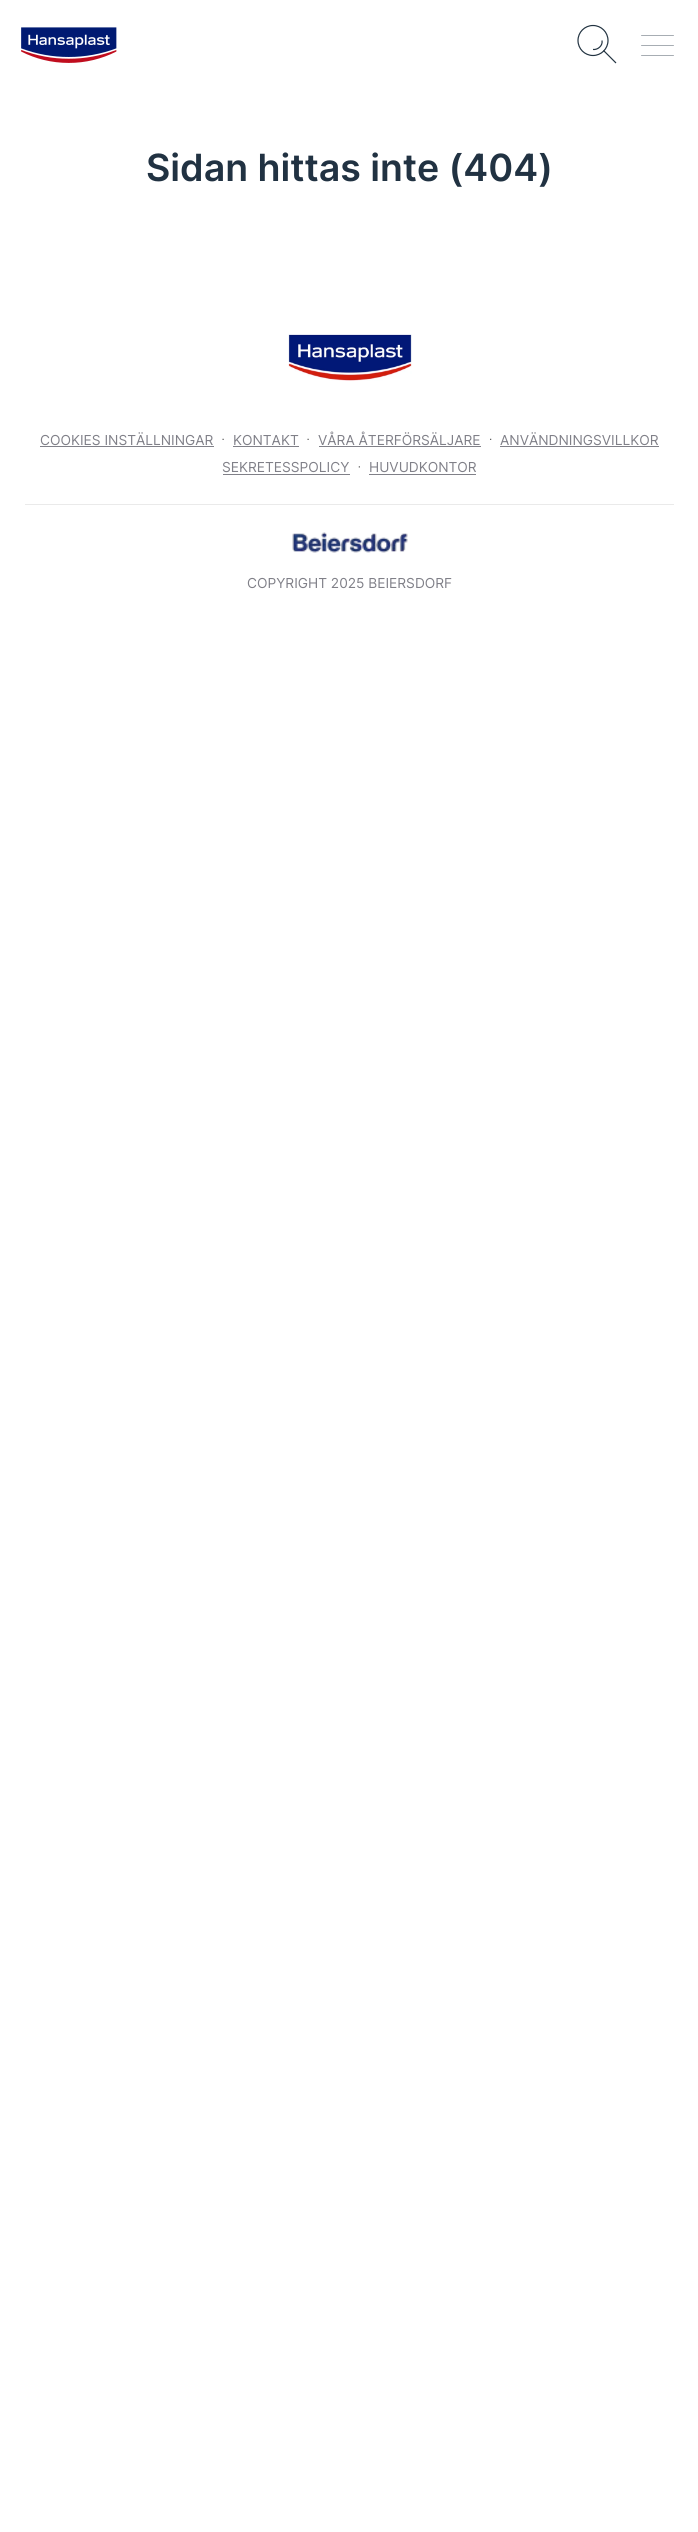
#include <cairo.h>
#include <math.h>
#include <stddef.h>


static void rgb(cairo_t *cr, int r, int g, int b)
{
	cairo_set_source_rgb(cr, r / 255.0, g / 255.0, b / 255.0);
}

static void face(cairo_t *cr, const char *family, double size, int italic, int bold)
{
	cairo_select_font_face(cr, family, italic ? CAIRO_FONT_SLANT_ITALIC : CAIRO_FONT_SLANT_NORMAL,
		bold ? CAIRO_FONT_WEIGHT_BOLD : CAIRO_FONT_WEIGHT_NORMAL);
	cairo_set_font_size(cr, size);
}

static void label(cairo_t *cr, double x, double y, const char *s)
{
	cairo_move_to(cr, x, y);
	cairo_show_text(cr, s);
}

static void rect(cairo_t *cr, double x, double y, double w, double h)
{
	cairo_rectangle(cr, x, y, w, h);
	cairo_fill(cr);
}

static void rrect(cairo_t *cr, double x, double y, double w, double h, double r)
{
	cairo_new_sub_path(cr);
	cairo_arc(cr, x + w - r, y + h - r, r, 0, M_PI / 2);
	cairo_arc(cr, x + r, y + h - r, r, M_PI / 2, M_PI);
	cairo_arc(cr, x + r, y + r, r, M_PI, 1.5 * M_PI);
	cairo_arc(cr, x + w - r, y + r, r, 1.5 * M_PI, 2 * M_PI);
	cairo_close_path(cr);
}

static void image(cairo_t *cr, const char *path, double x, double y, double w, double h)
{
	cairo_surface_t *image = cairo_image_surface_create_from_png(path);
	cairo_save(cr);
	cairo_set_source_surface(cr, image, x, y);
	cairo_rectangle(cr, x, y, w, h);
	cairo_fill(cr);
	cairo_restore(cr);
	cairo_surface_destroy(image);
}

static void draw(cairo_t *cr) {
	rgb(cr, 255, 255, 255);
	cairo_paint(cr);
	image(cr, "image0.png", 21, 27, 96, 36);
	cairo_arc(cr, 593, 40.5, 15, 0, 2 * M_PI);
	rgb(cr, 34, 51, 65);
	cairo_set_line_width(cr, 1.2);
	cairo_stroke(cr);
	cairo_new_path(cr);
	cairo_move_to(cr, 603.5, 50.5);
	cairo_line_to(cr, 616, 63);
	cairo_move_to(cr, 602, 40.5);
	cairo_curve_to(cr, 603, 45.5, 598, 50, 593, 49.5);
	cairo_stroke(cr);
	rgb(cr, 167, 173, 179);
	rrect(cr, 641, 35, 33, 1, 0.5);
	cairo_fill(cr);
	rrect(cr, 641, 45, 33, 1, 0.5);
	cairo_fill(cr);
	rrect(cr, 641, 55, 33, 1, 0.5);
	cairo_fill(cr);
	face(cr, "Inter SemiBold", 37.5, 0, 0);
	rgb(cr, 33, 50, 66);
	label(cr, 146, 181, "Sidan hittas inte (404)");
	image(cr, "image1.png", 288, 334, 124, 47);
	face(cr, "Inter", 13.75, 0, 0);
	rgb(cr, 128, 128, 136);
	label(cr, 40, 445, "COOKIES INSTÄLLNINGAR");
	rect(cr, 40, 446, 174, 1);
	image(cr, "image2.png", 222, 438, 2, 2);
	label(cr, 233, 445, "KONTAKT");
	rect(cr, 233, 446, 66, 1);
	image(cr, "image2.png", 307, 438, 2, 2);
	label(cr, 318, 445, "VÅRA ÅTERFÖRSÄLJARE");
	rect(cr, 319, 446, 162, 1);
	image(cr, "image3.png", 490, 438, 2, 2);
	label(cr, 500, 445, "ANVÄNDNINGSVILLKOR");
	rect(cr, 500, 446, 159, 1);
	label(cr, 222, 472, "SEKRETESSPOLICY");
	rect(cr, 223, 474, 127, 1);
	image(cr, "image4.png", 358, 466, 2, 2);
	label(cr, 369, 472, "HUVUDKONTOR");
	rect(cr, 369, 474, 107, 1);
	rgb(cr, 234, 234, 234);
	rect(cr, 25, 504, 649, 1);
	image(cr, "image5.png", 292, 532, 116, 21);
	rgb(cr, 128, 128, 136);
	label(cr, 247, 588, "COPYRIGHT 2025 BEIERSDORF");
}

int main(void) {
	cairo_surface_t *surface = cairo_image_surface_create(CAIRO_FORMAT_RGB24, 698, 2532);
	cairo_t *cr = cairo_create(surface);
	cairo_font_options_t *options = cairo_font_options_create();
	cairo_font_options_set_hint_metrics(options, CAIRO_HINT_METRICS_OFF);
	cairo_font_options_set_hint_style(options, CAIRO_HINT_STYLE_NONE);
	cairo_set_font_options(cr, options);
	cairo_set_miter_limit(cr, 4);
	draw(cr);
	cairo_surface_write_to_png(surface, "render.png");
	cairo_font_options_destroy(options);
	cairo_destroy(cr);
	cairo_surface_destroy(surface);
	return 0;
}
